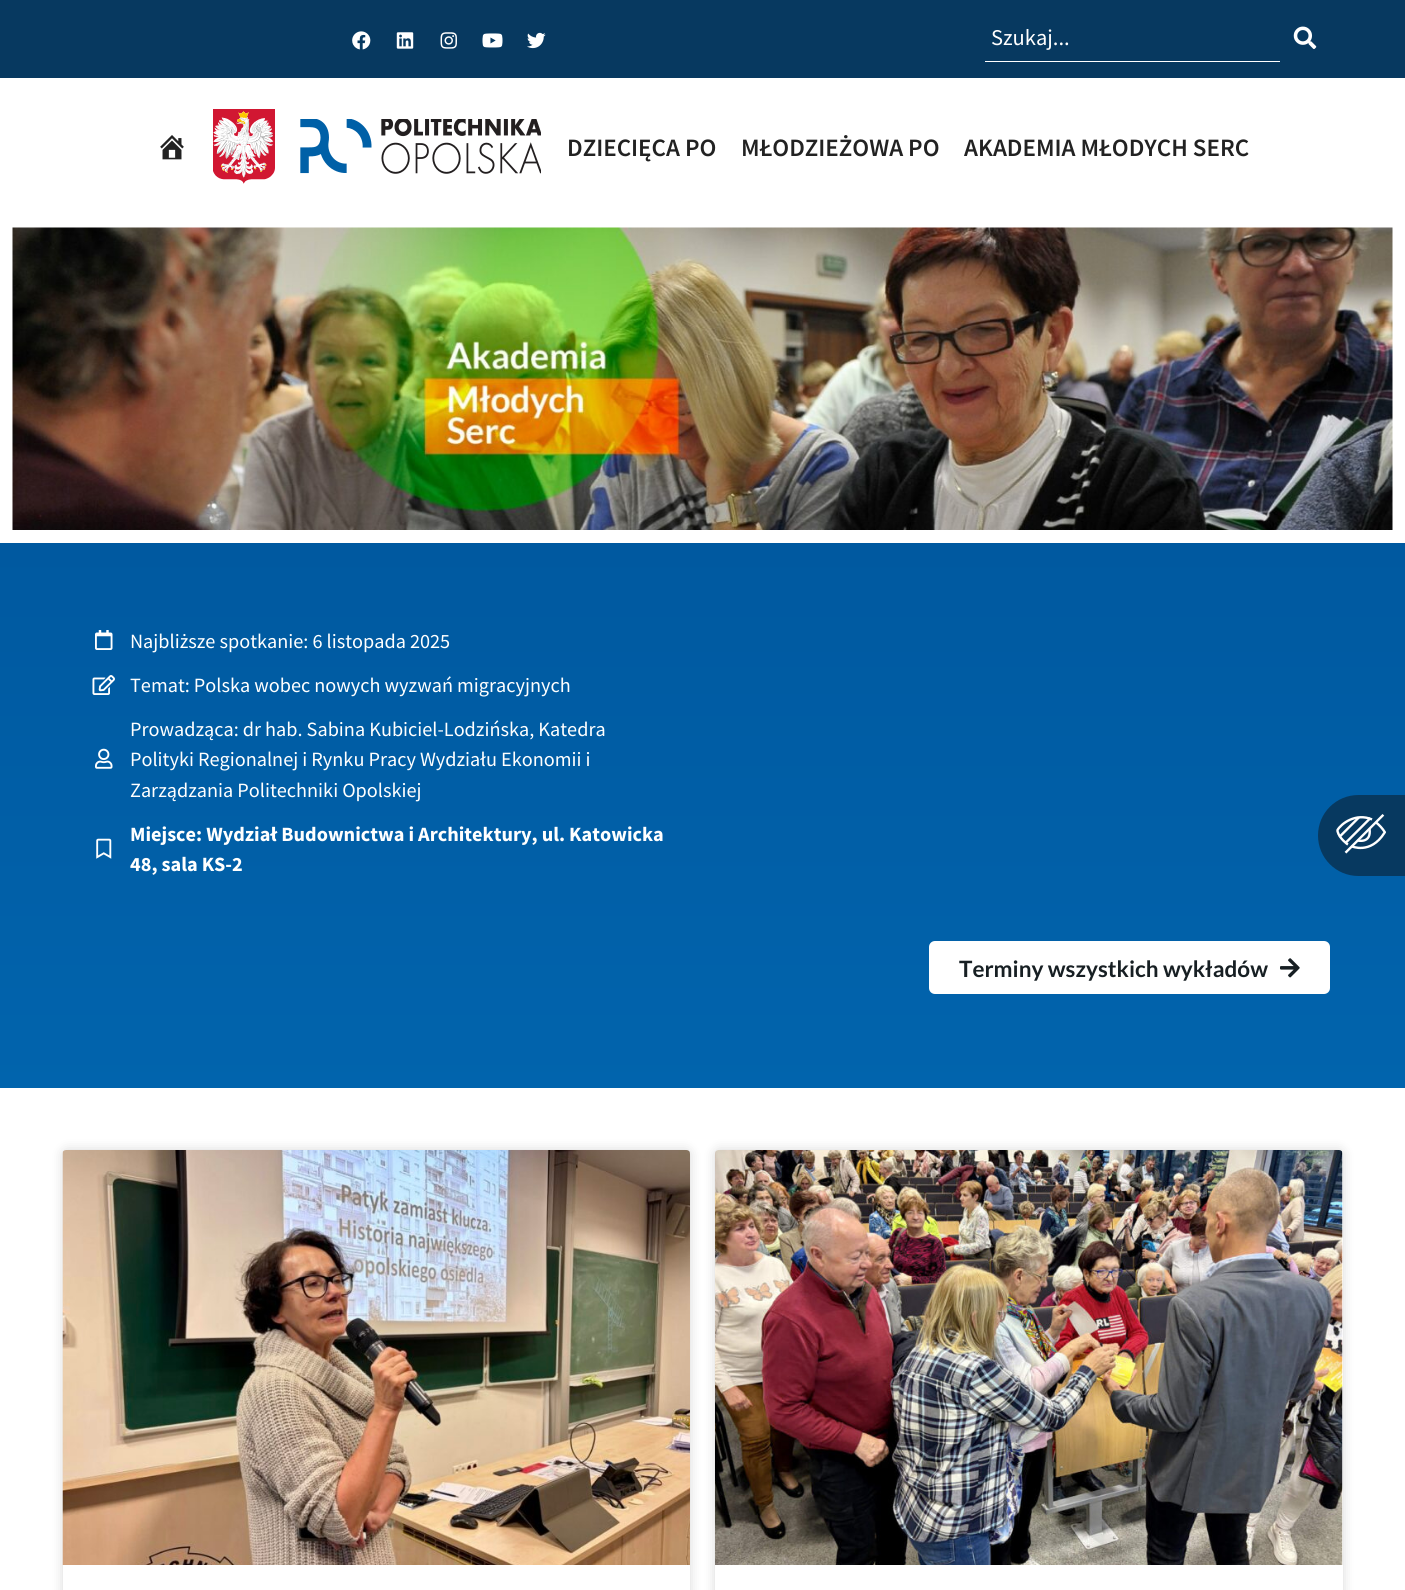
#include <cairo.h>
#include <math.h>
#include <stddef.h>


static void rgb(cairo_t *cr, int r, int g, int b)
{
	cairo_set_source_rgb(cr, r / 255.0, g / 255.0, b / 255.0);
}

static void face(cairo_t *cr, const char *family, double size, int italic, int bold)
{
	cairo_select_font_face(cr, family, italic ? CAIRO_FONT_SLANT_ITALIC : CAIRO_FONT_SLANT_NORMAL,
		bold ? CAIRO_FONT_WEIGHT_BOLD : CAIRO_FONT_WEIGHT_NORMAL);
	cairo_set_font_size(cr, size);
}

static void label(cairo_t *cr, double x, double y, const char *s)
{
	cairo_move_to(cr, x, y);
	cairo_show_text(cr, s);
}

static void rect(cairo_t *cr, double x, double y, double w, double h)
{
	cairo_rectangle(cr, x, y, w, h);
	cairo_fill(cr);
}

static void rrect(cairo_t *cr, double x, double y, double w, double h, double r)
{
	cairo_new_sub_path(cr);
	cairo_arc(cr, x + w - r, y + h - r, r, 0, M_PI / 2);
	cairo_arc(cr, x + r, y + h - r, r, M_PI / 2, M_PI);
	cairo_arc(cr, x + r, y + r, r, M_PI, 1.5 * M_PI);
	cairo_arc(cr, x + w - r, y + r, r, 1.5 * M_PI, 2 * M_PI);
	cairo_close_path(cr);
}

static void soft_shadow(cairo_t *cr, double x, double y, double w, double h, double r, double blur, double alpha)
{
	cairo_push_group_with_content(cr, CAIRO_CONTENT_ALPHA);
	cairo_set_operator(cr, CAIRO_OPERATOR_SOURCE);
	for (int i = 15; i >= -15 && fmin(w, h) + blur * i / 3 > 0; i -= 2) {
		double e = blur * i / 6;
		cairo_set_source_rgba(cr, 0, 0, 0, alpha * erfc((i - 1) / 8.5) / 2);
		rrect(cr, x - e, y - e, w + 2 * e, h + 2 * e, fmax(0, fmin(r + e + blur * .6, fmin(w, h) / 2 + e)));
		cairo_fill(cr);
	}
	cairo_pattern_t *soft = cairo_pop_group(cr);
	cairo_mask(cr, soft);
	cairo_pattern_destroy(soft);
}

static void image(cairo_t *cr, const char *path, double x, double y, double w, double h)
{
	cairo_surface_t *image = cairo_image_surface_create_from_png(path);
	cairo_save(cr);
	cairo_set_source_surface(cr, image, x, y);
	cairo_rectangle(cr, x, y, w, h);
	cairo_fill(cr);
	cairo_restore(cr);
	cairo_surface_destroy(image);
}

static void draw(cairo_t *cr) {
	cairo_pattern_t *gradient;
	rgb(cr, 255, 255, 255);
	cairo_paint(cr);
	rgb(cr, 7, 57, 96);
	rect(cr, 0, 0, 1405, 78);
	image(cr, "image0.png", 352, 31, 19, 19);
	image(cr, "image1.png", 396, 32, 18, 17);
	image(cr, "image2.png", 440, 32, 17, 17);
	image(cr, "image3.png", 482, 33, 21, 15);
	image(cr, "image4.png", 527, 32, 19, 17);
	rgb(cr, 255, 255, 255);
	rect(cr, 985, 61, 295, 1);
	face(cr, "Source Sans Pro", 22.5, 0, 0);
	label(cr, 991, 45, "Szukaj...");
	image(cr, "image5.png", 1293, 26, 24, 23);
	image(cr, "image6.png", 160, 135, 24, 25);
	image(cr, "image7.png", 213, 109, 62, 75);
	image(cr, "image8.png", 300, 119, 241, 55);
	face(cr, "Source Sans Pro SemiBold", 25, 0, 0);
	rgb(cr, 34, 34, 34);
	label(cr, 567, 156, "DZIECIĘCA PO");
	label(cr, 741, 156, "MŁODZIEŻOWA PO");
	label(cr, 964, 156, "AKADEMIA MŁODYCH SERC");
	image(cr, "image9.png", 12, 227, 1381, 303);
	gradient = cairo_pattern_create_linear(703, 542, 703, 1088);
	cairo_pattern_add_color_stop_rgba(gradient, 0, 0, 0.349, 0.627, 1);
	cairo_pattern_add_color_stop_rgba(gradient, 1, 0.004, 0.392, 0.678, 1);
	cairo_set_source(cr, gradient);
	cairo_pattern_destroy(gradient);
	rect(cr, 0, 543, 1405, 545);
	image(cr, "image10.png", 95, 630, 18, 20);
	face(cr, "Source Sans Pro", 20.25, 0, 0);
	rgb(cr, 255, 255, 255);
	label(cr, 130, 648, "Najbliższe spotkanie: 6 listopada 2025");
	image(cr, "image11.png", 92, 675, 23, 20);
	label(cr, 130, 692, "Temat: Polska wobec nowych wyzwań migracyjnych");
	image(cr, "image12.png", 95, 748, 18, 21);
	label(cr, 130, 736, "Prowadząca: dr hab. Sabina Kubiciel-Lodzińska, Katedra");
	label(cr, 130, 766, "Polityki Regionalnej i Rynku Pracy Wydziału Ekonomii i");
	label(cr, 130, 797, "Zarządzania Politechniki Opolskiej");
	image(cr, "image13.png", 96, 838, 16, 21);
	face(cr, "Source Sans Pro", 20.25, 0, 1);
	label(cr, 130, 841, "Miejsce: Wydział Budownictwa i Architektury, ul. Katowicka");
	label(cr, 130, 871, "48, sala KS-2");
	rrect(cr, 929, 941, 401, 53, 6);
	cairo_fill(cr);
	face(cr, "Lato", 22.5, 0, 1);
	rgb(cr, 23, 31, 35);
	label(cr, 959, 977, "Terminy wszystkich wykładów");
	image(cr, "image14.png", 1280, 958, 20, 20);
	rgb(cr, 0, 0, 0);
	soft_shadow(cr, 63, 1150, 627, 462, 4, 6, 0.15);
	rgb(cr, 255, 255, 255);
	rrect(cr, 63, 1150, 627, 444, 4);
	cairo_fill(cr);
	image(cr, "image15.png", 62, 1150, 628, 415);
	rgb(cr, 0, 0, 0);
	soft_shadow(cr, 715, 1150, 628, 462, 4, 6, 0.15);
	rgb(cr, 255, 255, 255);
	rrect(cr, 715, 1150, 628, 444, 4);
	cairo_fill(cr);
	image(cr, "image16.png", 715, 1150, 628, 415);
	rgb(cr, 7, 57, 96);
	cairo_new_path(cr);
	cairo_move_to(cr, 1358.5, 795);
	cairo_line_to(cr, 1405, 795);
	cairo_line_to(cr, 1405, 876);
	cairo_line_to(cr, 1358.5, 876);
	cairo_curve_to(cr, 1336, 876, 1318, 858, 1318, 835.5);
	cairo_curve_to(cr, 1318, 813, 1336, 795, 1358.5, 795);
	cairo_close_path(cr);
	cairo_fill(cr);
	image(cr, "image17.png", 1336, 814, 50, 40);
}

int main(void) {
	cairo_surface_t *surface = cairo_image_surface_create(CAIRO_FORMAT_RGB24, 1405, 1590);
	cairo_t *cr = cairo_create(surface);
	cairo_font_options_t *options = cairo_font_options_create();
	cairo_font_options_set_hint_metrics(options, CAIRO_HINT_METRICS_OFF);
	cairo_font_options_set_hint_style(options, CAIRO_HINT_STYLE_NONE);
	cairo_set_font_options(cr, options);
	cairo_set_miter_limit(cr, 4);
	draw(cr);
	cairo_surface_write_to_png(surface, "render.png");
	cairo_font_options_destroy(options);
	cairo_destroy(cr);
	cairo_surface_destroy(surface);
	return 0;
}
